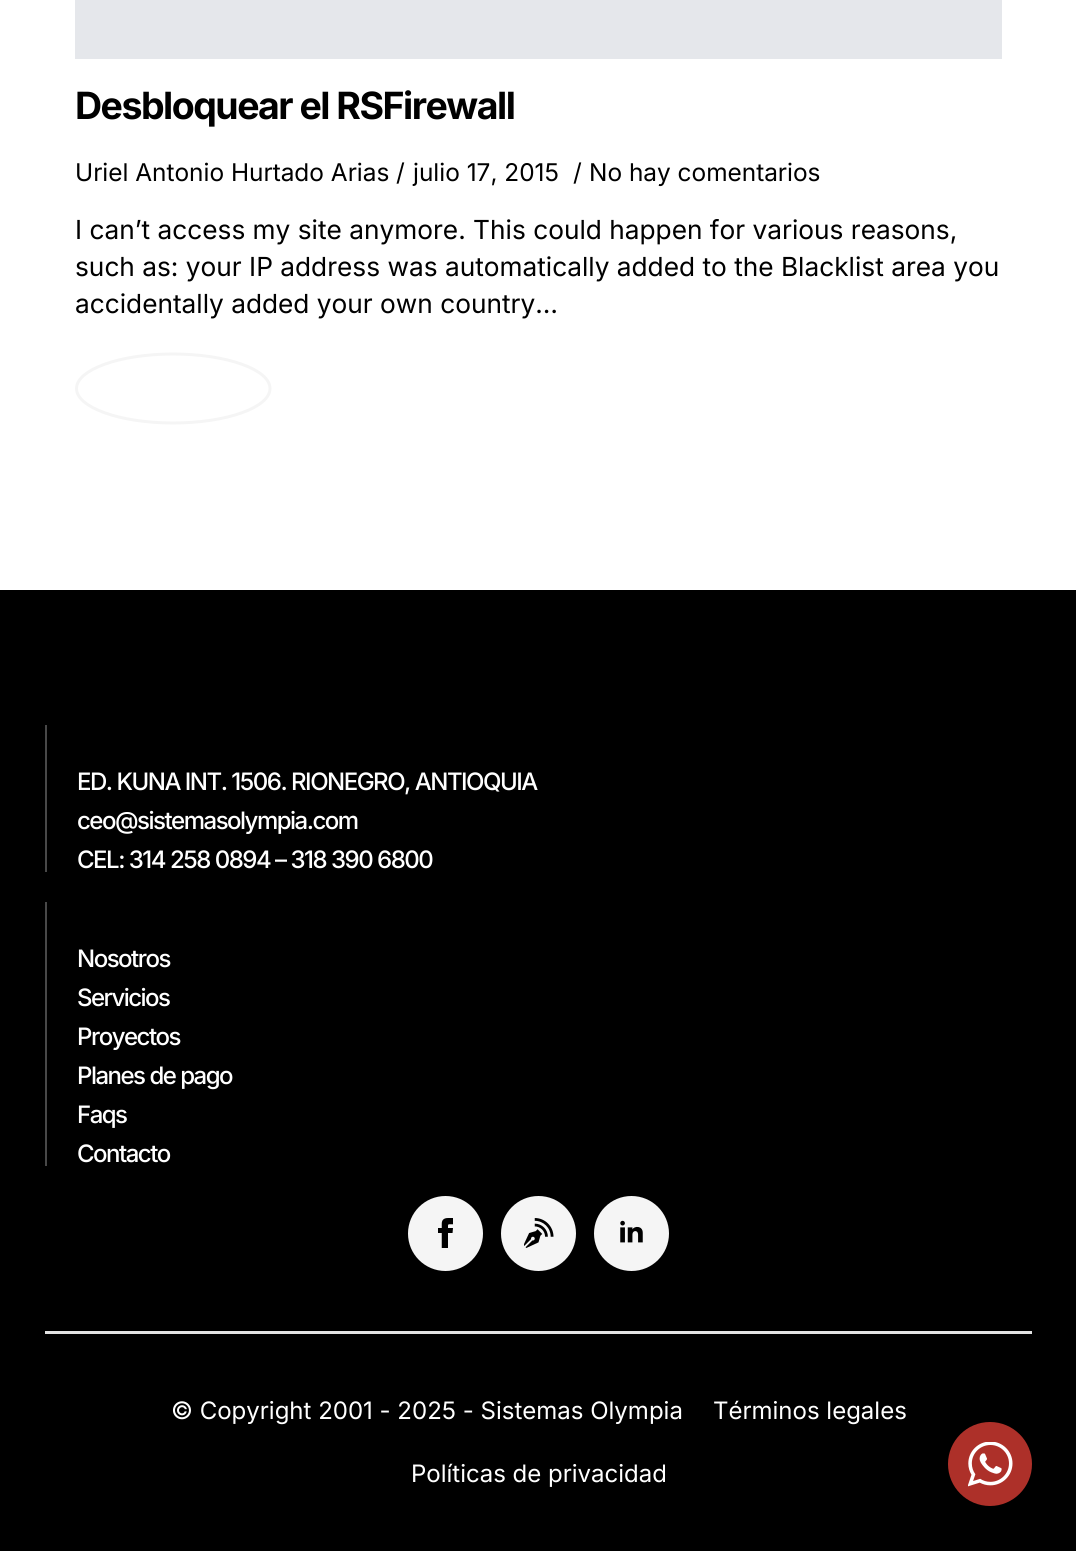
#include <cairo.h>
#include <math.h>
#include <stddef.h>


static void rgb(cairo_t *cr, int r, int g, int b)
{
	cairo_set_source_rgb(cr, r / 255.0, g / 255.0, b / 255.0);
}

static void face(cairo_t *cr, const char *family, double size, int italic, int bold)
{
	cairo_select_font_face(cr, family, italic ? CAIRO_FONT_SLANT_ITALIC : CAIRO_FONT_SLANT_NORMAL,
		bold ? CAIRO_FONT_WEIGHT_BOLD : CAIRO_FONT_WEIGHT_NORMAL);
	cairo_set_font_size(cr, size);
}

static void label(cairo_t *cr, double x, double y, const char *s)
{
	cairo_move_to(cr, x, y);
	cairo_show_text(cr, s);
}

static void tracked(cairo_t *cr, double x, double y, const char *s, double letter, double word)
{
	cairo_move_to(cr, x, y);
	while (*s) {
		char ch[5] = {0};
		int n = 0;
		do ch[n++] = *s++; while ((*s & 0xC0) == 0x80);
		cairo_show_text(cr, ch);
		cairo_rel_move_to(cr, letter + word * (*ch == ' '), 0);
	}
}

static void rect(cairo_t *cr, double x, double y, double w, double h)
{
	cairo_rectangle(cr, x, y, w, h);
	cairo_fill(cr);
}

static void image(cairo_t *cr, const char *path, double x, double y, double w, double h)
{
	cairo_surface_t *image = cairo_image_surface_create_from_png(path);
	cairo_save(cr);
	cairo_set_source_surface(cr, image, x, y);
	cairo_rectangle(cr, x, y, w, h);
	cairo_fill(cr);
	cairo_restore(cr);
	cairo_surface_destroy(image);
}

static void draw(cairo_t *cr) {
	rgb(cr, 255, 255, 255);
	cairo_paint(cr);
	rgb(cr, 229, 231, 235);
	rect(cr, 75, 0, 927, 59);
	face(cr, "Inter", 37.5, 0, 1);
	rgb(cr, 0, 0, 0);
	tracked(cr, 75, 119, "Desbloquear el RSFirewall", -1.5, 0);
	face(cr, "Inter", 24.4, 0, 0);
	label(cr, 75, 181, "Uriel Antonio Hurtado Arias");
	label(cr, 396, 181, "/");
	label(cr, 413, 181, "julio 17, 2015");
	label(cr, 573, 181, "/");
	label(cr, 589, 181, "No hay comentarios");
	face(cr, "Inter", 26.25, 0, 0);
	label(cr, 75, 239, "I can’t access my site anymore. This could happen for various reasons,");
	label(cr, 75, 276, "such as: your IP address was automatically added to the Blacklist area you");
	label(cr, 75, 313, "accidentally added your own country…");
	cairo_new_path(cr);
	cairo_move_to(cr, 173, 354);
	cairo_curve_to(cr, 226.5, 354, 270, 369.5, 270, 388.5);
	cairo_curve_to(cr, 270, 407.5, 226.5, 423, 173, 423);
	cairo_curve_to(cr, 120, 423, 76.5, 407.5, 76.5, 388.5);
	cairo_curve_to(cr, 76.5, 369.5, 120, 354, 173, 354);
	cairo_close_path(cr);
	rgb(cr, 245, 245, 245);
	cairo_set_line_width(cr, 3);
	cairo_stroke(cr);
	rgb(cr, 0, 0, 0);
	rect(cr, 0, 590, 1076, 961);
	rgb(cr, 72, 72, 72);
	rect(cr, 45, 725, 2, 147);
	face(cr, "Inter Medium", 24, 0, 0);
	rgb(cr, 255, 255, 255);
	tracked(cr, 77, 790, "ED. KUNA INT. 1506. RIONEGRO, ANTIOQUIA", -1.5, 0);
	tracked(cr, 77, 829, "ceo@sistemasolympia.com", -1.5, 0);
	tracked(cr, 77, 868, "CEL: 314 258 0894 – 318 390 6800", -1.5, 0);
	rgb(cr, 72, 72, 72);
	rect(cr, 45, 902, 2, 264);
	rgb(cr, 255, 255, 255);
	tracked(cr, 77, 967, "Nosotros", -1.5, 0);
	tracked(cr, 77, 1006, "Servicios", -1.5, 0);
	tracked(cr, 77, 1045, "Proyectos", -1.5, 0);
	tracked(cr, 77, 1084, "Planes de pago", -1.5, 0);
	tracked(cr, 77, 1123, "Faqs", -1.5, 0);
	tracked(cr, 77, 1162, "Contacto", -1.5, 0);
	rgb(cr, 245, 245, 245);
	cairo_new_path(cr);
	cairo_arc(cr, 445.5, 1233.5, 37.5, 0, 2 * M_PI);
	cairo_fill(cr);
	image(cr, "image0.png", 438, 1218, 15, 30);
	cairo_arc(cr, 538.5, 1233.5, 37.5, 0, 2 * M_PI);
	cairo_fill(cr);
	image(cr, "image1.png", 524, 1218, 30, 30);
	cairo_arc(cr, 631.5, 1233.5, 37.5, 0, 2 * M_PI);
	cairo_fill(cr);
	image(cr, "image2.png", 620, 1220, 23, 23);
	rgb(cr, 226, 226, 226);
	rect(cr, 45, 1331, 987, 3);
	face(cr, "Inter", 24, 0, 0);
	rgb(cr, 255, 255, 255);
	label(cr, 171, 1419, "© Copyright 2001 - 2025 - Sistemas Olympia");
	label(cr, 713, 1419, "Términos legales");
	label(cr, 411, 1482, "Políticas de privacidad");
	rgb(cr, 173, 48, 41);
	cairo_new_path(cr);
	cairo_arc(cr, 990, 1464, 42, 0, 2 * M_PI);
	cairo_fill(cr);
	image(cr, "image3.png", 968, 1442, 45, 45);
}

int main(void) {
	cairo_surface_t *surface = cairo_image_surface_create(CAIRO_FORMAT_RGB24, 1076, 1551);
	cairo_t *cr = cairo_create(surface);
	cairo_font_options_t *options = cairo_font_options_create();
	cairo_font_options_set_hint_metrics(options, CAIRO_HINT_METRICS_OFF);
	cairo_font_options_set_hint_style(options, CAIRO_HINT_STYLE_NONE);
	cairo_set_font_options(cr, options);
	cairo_set_miter_limit(cr, 4);
	draw(cr);
	cairo_surface_write_to_png(surface, "render.png");
	cairo_font_options_destroy(options);
	cairo_destroy(cr);
	cairo_surface_destroy(surface);
	return 0;
}
